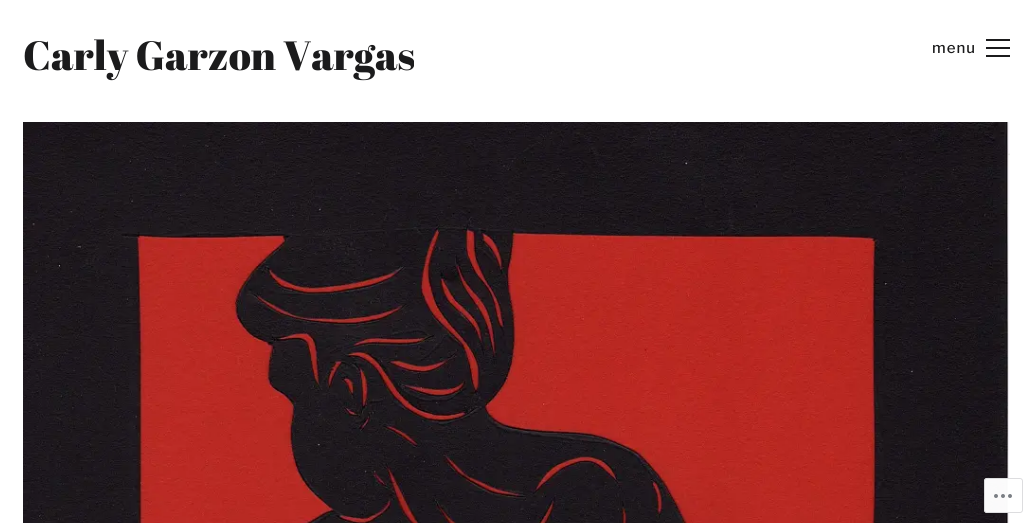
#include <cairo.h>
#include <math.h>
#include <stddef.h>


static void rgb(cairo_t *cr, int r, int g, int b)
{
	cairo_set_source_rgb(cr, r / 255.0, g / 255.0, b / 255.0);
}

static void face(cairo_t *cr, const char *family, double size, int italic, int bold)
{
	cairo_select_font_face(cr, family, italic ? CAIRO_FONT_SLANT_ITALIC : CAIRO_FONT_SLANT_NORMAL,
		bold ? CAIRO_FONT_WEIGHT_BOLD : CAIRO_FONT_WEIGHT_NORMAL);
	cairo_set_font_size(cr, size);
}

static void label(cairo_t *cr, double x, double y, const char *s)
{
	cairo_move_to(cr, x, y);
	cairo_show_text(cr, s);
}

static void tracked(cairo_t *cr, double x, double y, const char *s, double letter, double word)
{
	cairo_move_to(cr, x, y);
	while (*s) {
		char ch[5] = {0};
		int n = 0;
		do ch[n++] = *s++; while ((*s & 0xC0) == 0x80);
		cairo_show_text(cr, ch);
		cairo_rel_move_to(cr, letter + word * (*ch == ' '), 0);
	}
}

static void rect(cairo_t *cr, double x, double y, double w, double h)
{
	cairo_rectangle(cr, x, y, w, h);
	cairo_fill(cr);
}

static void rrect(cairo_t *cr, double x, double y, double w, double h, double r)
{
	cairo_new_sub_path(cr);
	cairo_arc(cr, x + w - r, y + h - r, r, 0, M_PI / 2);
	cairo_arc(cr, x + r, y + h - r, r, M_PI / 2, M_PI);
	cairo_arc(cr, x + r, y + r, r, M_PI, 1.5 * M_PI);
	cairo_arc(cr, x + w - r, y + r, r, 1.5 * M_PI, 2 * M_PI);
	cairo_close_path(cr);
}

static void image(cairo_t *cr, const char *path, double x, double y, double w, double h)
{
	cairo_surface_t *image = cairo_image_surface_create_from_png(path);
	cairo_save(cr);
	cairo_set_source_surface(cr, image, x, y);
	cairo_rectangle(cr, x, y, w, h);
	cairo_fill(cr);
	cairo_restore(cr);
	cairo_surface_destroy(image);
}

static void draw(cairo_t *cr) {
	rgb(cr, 255, 255, 255);
	cairo_paint(cr);
	face(cr, "Abril Fatface", 40.75, 0, 0);
	rgb(cr, 27, 27, 28);
	label(cr, 23, 70, "Carly Garzon Vargas");
	face(cr, "Libre Franklin Medium", 15, 0, 0);
	tracked(cr, 932, 53, "menu", 1, 0);
	rect(cr, 986, 39, 24, 2);
	rect(cr, 986, 55, 24, 2);
	rect(cr, 986, 47, 24, 2);
	image(cr, "image0.png", 23, 122, 987, 401);
	cairo_set_source_rgba(cr, 1, 1, 1, 0.98);
	rrect(cr, 984, 478, 39, 35, 3);
	cairo_fill(cr);
	rrect(cr, 984.5, 478.5, 38, 34, 2.5);
	cairo_set_source_rgba(cr, 0.863, 0.863, 0.871, 0.98);
	cairo_set_line_width(cr, 1);
	cairo_stroke(cr);
	image(cr, "image1.png", 994, 494, 18, 4);
}

int main(void) {
	cairo_surface_t *surface = cairo_image_surface_create(CAIRO_FORMAT_RGB24, 1033, 523);
	cairo_t *cr = cairo_create(surface);
	cairo_font_options_t *options = cairo_font_options_create();
	cairo_font_options_set_hint_metrics(options, CAIRO_HINT_METRICS_OFF);
	cairo_font_options_set_hint_style(options, CAIRO_HINT_STYLE_NONE);
	cairo_set_font_options(cr, options);
	cairo_set_miter_limit(cr, 4);
	draw(cr);
	cairo_surface_write_to_png(surface, "render.png");
	cairo_font_options_destroy(options);
	cairo_destroy(cr);
	cairo_surface_destroy(surface);
	return 0;
}
